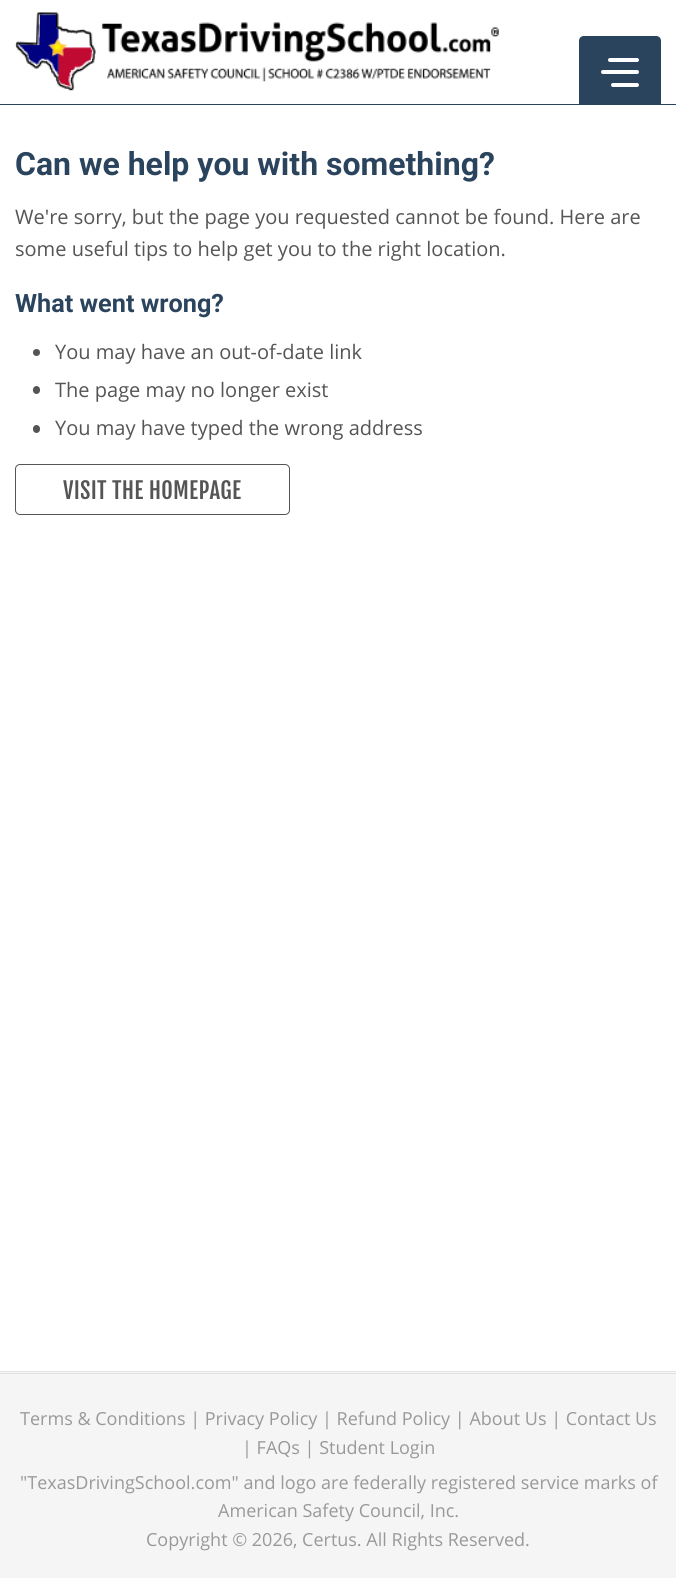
#include <cairo.h>
#include <math.h>
#include <stddef.h>


static void rgb(cairo_t *cr, int r, int g, int b)
{
	cairo_set_source_rgb(cr, r / 255.0, g / 255.0, b / 255.0);
}

static void face(cairo_t *cr, const char *family, double size, int italic, int bold)
{
	cairo_select_font_face(cr, family, italic ? CAIRO_FONT_SLANT_ITALIC : CAIRO_FONT_SLANT_NORMAL,
		bold ? CAIRO_FONT_WEIGHT_BOLD : CAIRO_FONT_WEIGHT_NORMAL);
	cairo_set_font_size(cr, size);
}

static void label(cairo_t *cr, double x, double y, const char *s)
{
	cairo_move_to(cr, x, y);
	cairo_show_text(cr, s);
}

static void tracked(cairo_t *cr, double x, double y, const char *s, double letter, double word)
{
	cairo_move_to(cr, x, y);
	while (*s) {
		char ch[5] = {0};
		int n = 0;
		do ch[n++] = *s++; while ((*s & 0xC0) == 0x80);
		cairo_show_text(cr, ch);
		cairo_rel_move_to(cr, letter + word * (*ch == ' '), 0);
	}
}

static void rect(cairo_t *cr, double x, double y, double w, double h)
{
	cairo_rectangle(cr, x, y, w, h);
	cairo_fill(cr);
}

static void rrect(cairo_t *cr, double x, double y, double w, double h, double r)
{
	cairo_new_sub_path(cr);
	cairo_arc(cr, x + w - r, y + h - r, r, 0, M_PI / 2);
	cairo_arc(cr, x + r, y + h - r, r, M_PI / 2, M_PI);
	cairo_arc(cr, x + r, y + r, r, M_PI, 1.5 * M_PI);
	cairo_arc(cr, x + w - r, y + r, r, 1.5 * M_PI, 2 * M_PI);
	cairo_close_path(cr);
}

static void image(cairo_t *cr, const char *path, double x, double y, double w, double h)
{
	cairo_surface_t *image = cairo_image_surface_create_from_png(path);
	cairo_save(cr);
	cairo_set_source_surface(cr, image, x, y);
	cairo_rectangle(cr, x, y, w, h);
	cairo_fill(cr);
	cairo_restore(cr);
	cairo_surface_destroy(image);
}

static void draw(cairo_t *cr) {
	rgb(cr, 255, 255, 255);
	cairo_paint(cr);
	image(cr, "image0.png", 15, 12, 484, 79);
	rgb(cr, 43, 68, 94);
	rect(cr, 0, 104, 676, 1);
	cairo_new_path(cr);
	cairo_move_to(cr, 584, 36);
	cairo_line_to(cr, 656, 36);
	cairo_curve_to(cr, 659, 36, 661, 38, 661, 41);
	cairo_line_to(cr, 661, 105);
	cairo_line_to(cr, 579, 105);
	cairo_line_to(cr, 579, 41);
	cairo_curve_to(cr, 579, 38, 581, 36, 584, 36);
	cairo_close_path(cr);
	cairo_fill(cr);
	rgb(cr, 255, 255, 255);
	rrect(cr, 608, 58, 31, 4, 2);
	cairo_fill(cr);
	rrect(cr, 601, 70, 38, 4, 2);
	cairo_fill(cr);
	rrect(cr, 611, 83, 28, 4, 2);
	cairo_fill(cr);
	face(cr, "Roboto", 32, 0, 1);
	rgb(cr, 43, 68, 94);
	label(cr, 15, 175, "Can we help you with something?");
	face(cr, "Open Sans", 20, 0, 0);
	rgb(cr, 85, 85, 85);
	label(cr, 15, 224, "We're sorry, but the page you requested cannot be found. Here are");
	label(cr, 15, 256, "some useful tips to help get you to the right location.");
	face(cr, "Roboto", 25.25, 0, 1);
	rgb(cr, 43, 68, 94);
	label(cr, 15, 312, "What went wrong?");
	rgb(cr, 85, 85, 85);
	cairo_new_path(cr);
	cairo_arc(cr, 36.5, 352.5, 3.5, 0, 2 * M_PI);
	cairo_fill(cr);
	face(cr, "Open Sans", 20, 0, 0);
	label(cr, 55, 359, "You may have an out-of-date link");
	rrect(cr, 33, 386, 7, 8, 3.5);
	cairo_fill(cr);
	label(cr, 55, 397, "The page may no longer exist");
	rrect(cr, 33, 425, 7, 8, 3.5);
	cairo_fill(cr);
	label(cr, 55, 435, "You may have typed the wrong address");
	rrect(cr, 15.5, 464.5, 274, 50, 4.5);
	cairo_set_line_width(cr, 1);
	cairo_stroke(cr);
	face(cr, "Fjalla One", 22.5, 0, 0);
	tracked(cr, 63, 499, "VISIT THE HOMEPAGE", 0.25, 0);
	rgb(cr, 245, 245, 245);
	rect(cr, 0, 1372, 676, 206);
	rgb(cr, 228, 228, 228);
	rect(cr, 0, 1371, 676, 1);
	rgb(cr, 222, 226, 230);
	rect(cr, 0, 1373, 676, 1);
	face(cr, "Open Sans", 18, 0, 0);
	rgb(cr, 153, 153, 153);
	label(cr, 20, 1425, "Terms & Conditions | Privacy Policy | Refund Policy | About Us | Contact Us");
	label(cr, 242, 1454, "| FAQs | Student Login");
	label(cr, 20, 1489, "\"TexasDrivingSchool.com\" and logo are federally registered service marks of");
	label(cr, 218, 1517, "American Safety Council, Inc.");
	label(cr, 146, 1546, "Copyright © 2026, Certus. All Rights Reserved.");
}

int main(void) {
	cairo_surface_t *surface = cairo_image_surface_create(CAIRO_FORMAT_RGB24, 676, 1578);
	cairo_t *cr = cairo_create(surface);
	cairo_font_options_t *options = cairo_font_options_create();
	cairo_font_options_set_hint_metrics(options, CAIRO_HINT_METRICS_OFF);
	cairo_font_options_set_hint_style(options, CAIRO_HINT_STYLE_NONE);
	cairo_set_font_options(cr, options);
	cairo_set_miter_limit(cr, 4);
	draw(cr);
	cairo_surface_write_to_png(surface, "render.png");
	cairo_font_options_destroy(options);
	cairo_destroy(cr);
	cairo_surface_destroy(surface);
	return 0;
}
